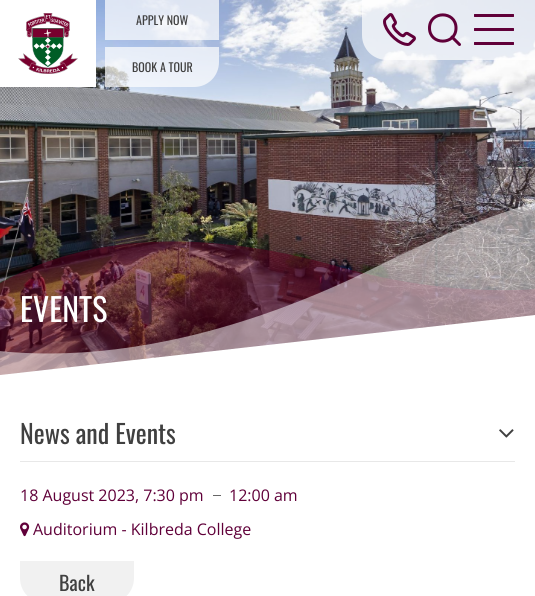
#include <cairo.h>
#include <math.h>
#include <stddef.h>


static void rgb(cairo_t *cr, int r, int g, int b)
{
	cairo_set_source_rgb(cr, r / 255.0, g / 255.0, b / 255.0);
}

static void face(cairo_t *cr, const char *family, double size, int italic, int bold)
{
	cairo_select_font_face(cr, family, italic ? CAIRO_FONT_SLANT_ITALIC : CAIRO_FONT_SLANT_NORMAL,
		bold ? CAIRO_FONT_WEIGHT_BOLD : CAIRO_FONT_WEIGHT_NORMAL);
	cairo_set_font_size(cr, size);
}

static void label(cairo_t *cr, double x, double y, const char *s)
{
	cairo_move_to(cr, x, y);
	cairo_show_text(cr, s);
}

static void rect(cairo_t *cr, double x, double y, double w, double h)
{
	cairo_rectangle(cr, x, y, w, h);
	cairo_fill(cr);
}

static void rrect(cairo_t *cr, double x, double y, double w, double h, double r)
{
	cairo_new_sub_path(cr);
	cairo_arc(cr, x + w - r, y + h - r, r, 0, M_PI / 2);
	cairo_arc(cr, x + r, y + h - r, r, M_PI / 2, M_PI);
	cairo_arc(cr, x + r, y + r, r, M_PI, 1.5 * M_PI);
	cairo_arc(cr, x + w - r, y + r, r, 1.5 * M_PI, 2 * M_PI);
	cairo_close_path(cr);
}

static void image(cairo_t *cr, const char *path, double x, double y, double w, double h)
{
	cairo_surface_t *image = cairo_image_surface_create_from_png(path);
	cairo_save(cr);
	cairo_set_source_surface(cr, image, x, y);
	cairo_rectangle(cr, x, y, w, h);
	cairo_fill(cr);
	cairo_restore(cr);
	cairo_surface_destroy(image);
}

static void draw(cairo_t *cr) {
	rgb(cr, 255, 255, 255);
	cairo_paint(cr);
	image(cr, "image2.png", 0, 0, 535, 375);
	rgb(cr, 255, 255, 255);
	rect(cr, 0, 0, 96, 87);
	image(cr, "image0.png", 18, 13, 60, 61);
	cairo_set_source_rgba(cr, 1, 1, 1, 0.7);
	rect(cr, 105, 0, 114, 40);
	face(cr, "Oswald", 12, 0, 0);
	rgb(cr, 64, 64, 64);
	label(cr, 136, 25, "APPLY NOW");
	cairo_set_source_rgba(cr, 1, 1, 1, 0.7);
	cairo_new_path(cr);
	cairo_move_to(cr, 105, 47);
	cairo_line_to(cr, 219, 47);
	cairo_line_to(cr, 219, 62);
	cairo_curve_to(cr, 219, 76, 208, 87, 194, 87);
	cairo_line_to(cr, 105, 87);
	cairo_close_path(cr);
	cairo_fill(cr);
	rgb(cr, 64, 64, 64);
	label(cr, 132, 72, "BOOK A TOUR");
	cairo_set_source_rgba(cr, 1, 1, 1, 0.7);
	cairo_new_path(cr);
	cairo_move_to(cr, 362, 0);
	cairo_line_to(cr, 535, 0);
	cairo_line_to(cr, 535, 60);
	cairo_line_to(cr, 387, 60);
	cairo_curve_to(cr, 373, 60, 362, 49, 362, 35);
	cairo_close_path(cr);
	cairo_fill(cr);
	image(cr, "image1.png", 383, 13, 33, 33);
	cairo_new_path(cr);
	cairo_move_to(cr, 456, 28);
	cairo_curve_to(cr, 456, 45.5, 429.5, 45.5, 429.5, 28);
	cairo_curve_to(cr, 429.5, 10.5, 456, 10.5, 456, 28);
	cairo_close_path(cr);
	cairo_move_to(cr, 459.5, 44.5);
	cairo_line_to(cr, 452, 37);
	rgb(cr, 96, 0, 57);
	cairo_set_line_width(cr, 3);
	cairo_set_line_cap(cr, CAIRO_LINE_CAP_ROUND);
	cairo_set_line_join(cr, CAIRO_LINE_JOIN_ROUND);
	cairo_stroke(cr);
	rrect(cr, 474, 42, 40, 3, 0.5);
	cairo_fill(cr);
	rrect(cr, 474, 14, 40, 3, 0.5);
	cairo_fill(cr);
	rrect(cr, 474, 28, 40, 3, 0.5);
	cairo_fill(cr);
	cairo_save(cr);
	cairo_rectangle(cr, 0, 90, 535, 285);
	cairo_clip(cr);
	cairo_set_source_rgba(cr, 0.384, 0, 0.137, 0.5);
	cairo_new_path(cr);
	cairo_move_to(cr, -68, 341);
	cairo_curve_to(cr, -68, 341, 37, 182, 336, 266);
	cairo_curve_to(cr, 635, 350, 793, 188, 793, 188);
	cairo_line_to(cr, 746, 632);
	cairo_line_to(cr, -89, 543);
	cairo_close_path(cr);
	cairo_fill(cr);
	cairo_set_source_rgba(cr, 1, 1, 1, 0.5);
	cairo_new_path(cr);
	cairo_move_to(cr, -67, 337);
	cairo_curve_to(cr, -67, 337, 100, 405, 380, 265);
	cairo_curve_to(cr, 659, 125, 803, 190, 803, 190);
	cairo_line_to(cr, 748, 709);
	cairo_line_to(cr, -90, 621);
	cairo_close_path(cr);
	cairo_fill(cr);
	cairo_restore(cr);
	rgb(cr, 255, 255, 255);
	cairo_new_path(cr);
	cairo_move_to(cr, 535, 375);
	cairo_line_to(cr, 0, 375);
	cairo_line_to(cr, 535, 315);
	cairo_close_path(cr);
	cairo_fill(cr);
	face(cr, "Oswald", 32, 0, 0);
	label(cr, 20, 322, "EVENTS");
	rgb(cr, 232, 232, 232);
	rect(cr, 20, 461, 495, 1);
	face(cr, "Oswald", 26, 0, 0);
	rgb(cr, 64, 64, 64);
	label(cr, 20, 444, "News and Events");
	image(cr, "image3.png", 499, 429, 15, 9);
	face(cr, "Open Sans", 16, 0, 0);
	rgb(cr, 96, 0, 57);
	label(cr, 20, 501, "18 August 2023, 7:30 pm");
	rgb(cr, 102, 102, 102);
	rect(cr, 213, 495, 8, 1);
	rgb(cr, 96, 0, 57);
	label(cr, 229, 501, "12:00 am");
	image(cr, "image4.png", 20, 522, 10, 15);
	label(cr, 33, 535, "Auditorium - Kilbreda College");
	rgb(cr, 241, 241, 241);
	cairo_new_path(cr);
	cairo_move_to(cr, 20, 561);
	cairo_line_to(cr, 134, 561);
	cairo_line_to(cr, 134, 578);
	cairo_curve_to(cr, 134, 592, 123, 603, 109, 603);
	cairo_line_to(cr, 45, 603);
	cairo_curve_to(cr, 31, 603, 20, 592, 20, 578);
	cairo_close_path(cr);
	cairo_fill(cr);
	face(cr, "Oswald", 20, 0, 0);
	rgb(cr, 64, 64, 64);
	label(cr, 59, 591, "Back");
}

int main(void) {
	cairo_surface_t *surface = cairo_image_surface_create(CAIRO_FORMAT_RGB24, 535, 596);
	cairo_t *cr = cairo_create(surface);
	cairo_font_options_t *options = cairo_font_options_create();
	cairo_font_options_set_hint_metrics(options, CAIRO_HINT_METRICS_OFF);
	cairo_font_options_set_hint_style(options, CAIRO_HINT_STYLE_NONE);
	cairo_set_font_options(cr, options);
	cairo_set_miter_limit(cr, 4);
	draw(cr);
	cairo_surface_write_to_png(surface, "render.png");
	cairo_font_options_destroy(options);
	cairo_destroy(cr);
	cairo_surface_destroy(surface);
	return 0;
}
